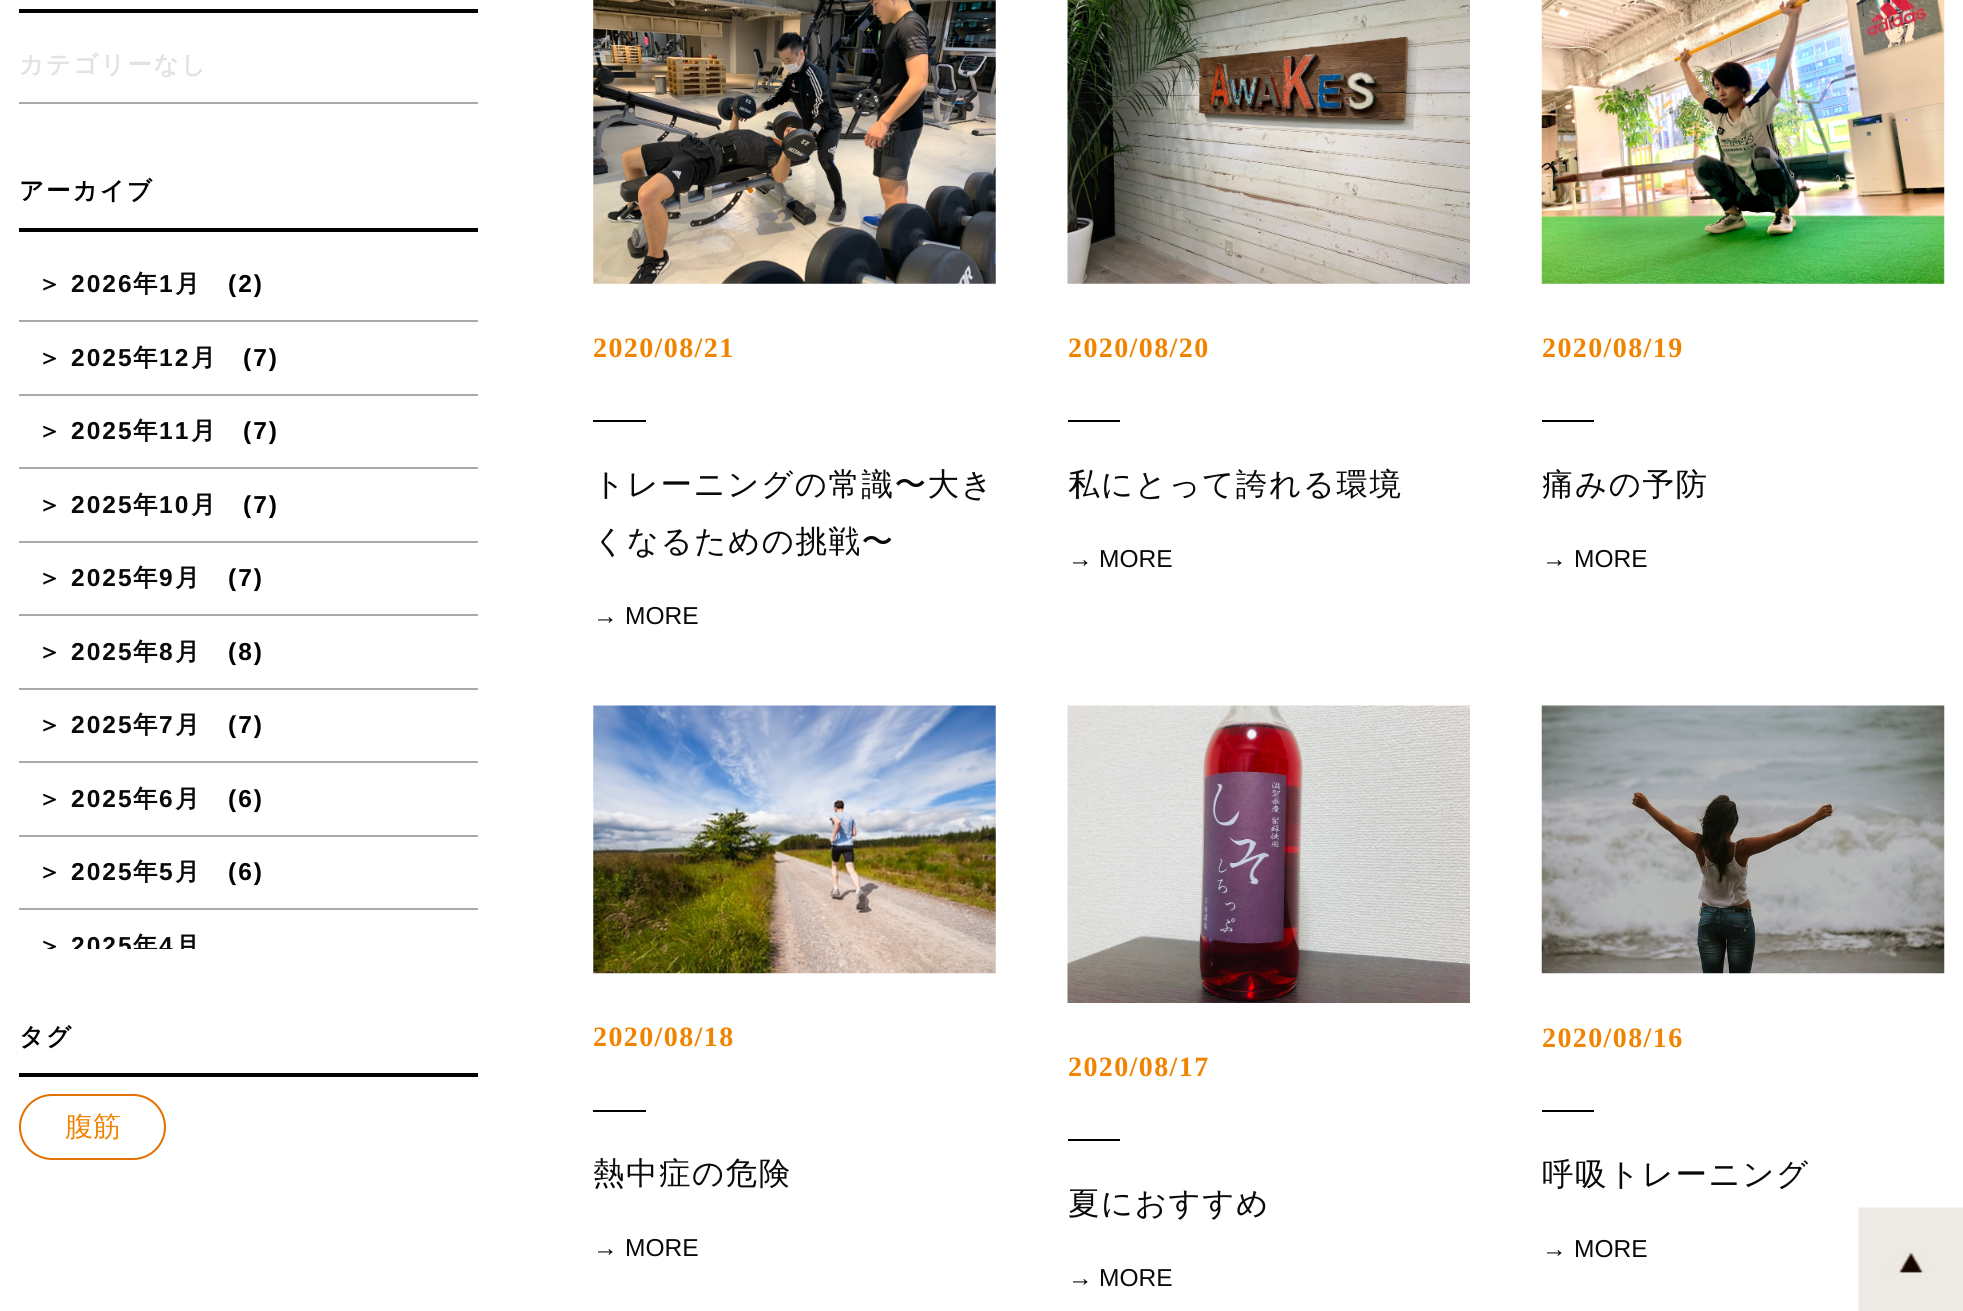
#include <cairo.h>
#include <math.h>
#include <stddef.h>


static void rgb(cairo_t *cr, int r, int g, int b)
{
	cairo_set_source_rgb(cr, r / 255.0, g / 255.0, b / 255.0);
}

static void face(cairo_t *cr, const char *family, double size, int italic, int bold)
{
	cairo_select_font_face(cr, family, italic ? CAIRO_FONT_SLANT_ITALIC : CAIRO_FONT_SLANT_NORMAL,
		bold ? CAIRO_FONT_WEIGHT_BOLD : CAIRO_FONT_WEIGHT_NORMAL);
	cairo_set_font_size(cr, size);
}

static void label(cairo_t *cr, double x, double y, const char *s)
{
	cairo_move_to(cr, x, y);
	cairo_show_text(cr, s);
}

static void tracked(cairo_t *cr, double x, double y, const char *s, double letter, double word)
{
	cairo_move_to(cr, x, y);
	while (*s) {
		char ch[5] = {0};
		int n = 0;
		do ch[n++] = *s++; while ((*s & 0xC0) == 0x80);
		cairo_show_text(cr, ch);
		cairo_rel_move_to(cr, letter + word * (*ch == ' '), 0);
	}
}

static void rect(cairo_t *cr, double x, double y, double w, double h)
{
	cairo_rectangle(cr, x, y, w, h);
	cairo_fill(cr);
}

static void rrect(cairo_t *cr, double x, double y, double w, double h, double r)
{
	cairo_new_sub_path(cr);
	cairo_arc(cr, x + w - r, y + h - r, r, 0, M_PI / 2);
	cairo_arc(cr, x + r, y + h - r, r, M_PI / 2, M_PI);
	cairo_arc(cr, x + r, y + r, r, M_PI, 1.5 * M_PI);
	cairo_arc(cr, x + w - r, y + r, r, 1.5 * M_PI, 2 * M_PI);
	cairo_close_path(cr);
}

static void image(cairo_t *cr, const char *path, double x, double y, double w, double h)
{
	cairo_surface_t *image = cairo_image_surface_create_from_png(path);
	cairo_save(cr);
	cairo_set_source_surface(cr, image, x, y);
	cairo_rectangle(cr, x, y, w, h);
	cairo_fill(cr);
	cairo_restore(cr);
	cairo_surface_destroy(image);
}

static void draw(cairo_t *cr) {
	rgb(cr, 255, 255, 255);
	cairo_paint(cr);
	rgb(cr, 0, 0, 0);
	rect(cr, 19, 9, 459, 4);
	rgb(cr, 169, 169, 169);
	rect(cr, 19, 102, 459, 2);
	face(cr, "WenQuanYi Zen Hei", 24.5, 0, 1);
	rgb(cr, 226, 226, 226);
	tracked(cr, 19, 73, "カテゴリーなし", 2, 0);
	rgb(cr, 0, 0, 0);
	rect(cr, 19, 228, 459, 4);
	tracked(cr, 19, 199, "アーカイブ", 2, 0);
	rgb(cr, 169, 169, 169);
	rect(cr, 19, 320, 459, 2);
	rgb(cr, 9, 9, 9);
	tracked(cr, 37, 292, "＞", 2, 0);
	face(cr, "Liberation Sans", 24.5, 0, 1);
	tracked(cr, 71, 292, "2026", 2, 0);
	face(cr, "WenQuanYi Zen Hei", 24.5, 0, 1);
	tracked(cr, 133, 292, "年", 2, 0);
	face(cr, "Liberation Sans", 24.5, 0, 1);
	tracked(cr, 159, 292, "1", 2, 0);
	face(cr, "WenQuanYi Zen Hei", 24.5, 0, 1);
	tracked(cr, 175, 292, "月", 2, 0);
	face(cr, "Liberation Sans", 24.5, 0, 1);
	rgb(cr, 0, 0, 0);
	tracked(cr, 228, 292, "(2)", 2, 0);
	rgb(cr, 169, 169, 169);
	rect(cr, 19, 394, 459, 2);
	face(cr, "WenQuanYi Zen Hei", 24.5, 0, 1);
	rgb(cr, 9, 9, 9);
	tracked(cr, 37, 366, "＞", 2, 0);
	face(cr, "Liberation Sans", 24.5, 0, 1);
	tracked(cr, 71, 366, "2025", 2, 0);
	face(cr, "WenQuanYi Zen Hei", 24.5, 0, 1);
	tracked(cr, 133, 366, "年", 2, 0);
	face(cr, "Liberation Sans", 24.5, 0, 1);
	tracked(cr, 159, 366, "12", 2, 0);
	face(cr, "WenQuanYi Zen Hei", 24.5, 0, 1);
	tracked(cr, 191, 366, "月", 2, 0);
	face(cr, "Liberation Sans", 24.5, 0, 1);
	rgb(cr, 0, 0, 0);
	tracked(cr, 243, 366, "(7)", 2, 0);
	rgb(cr, 169, 169, 169);
	rect(cr, 19, 467, 459, 2);
	face(cr, "WenQuanYi Zen Hei", 24.5, 0, 1);
	rgb(cr, 9, 9, 9);
	tracked(cr, 37, 439, "＞", 2, 0);
	face(cr, "Liberation Sans", 24.5, 0, 1);
	tracked(cr, 71, 439, "2025", 2, 0);
	face(cr, "WenQuanYi Zen Hei", 24.5, 0, 1);
	tracked(cr, 133, 439, "年", 2, 0);
	face(cr, "Liberation Sans", 24.5, 0, 1);
	tracked(cr, 159, 439, "11", 2, 0);
	face(cr, "WenQuanYi Zen Hei", 24.5, 0, 1);
	tracked(cr, 191, 439, "月", 2, 0);
	face(cr, "Liberation Sans", 24.5, 0, 1);
	rgb(cr, 0, 0, 0);
	tracked(cr, 243, 439, "(7)", 2, 0);
	rgb(cr, 169, 169, 169);
	rect(cr, 19, 541, 459, 2);
	face(cr, "WenQuanYi Zen Hei", 24.5, 0, 1);
	rgb(cr, 9, 9, 9);
	tracked(cr, 37, 513, "＞", 2, 0);
	face(cr, "Liberation Sans", 24.5, 0, 1);
	tracked(cr, 71, 513, "2025", 2, 0);
	face(cr, "WenQuanYi Zen Hei", 24.5, 0, 1);
	tracked(cr, 133, 513, "年", 2, 0);
	face(cr, "Liberation Sans", 24.5, 0, 1);
	tracked(cr, 159, 513, "10", 2, 0);
	face(cr, "WenQuanYi Zen Hei", 24.5, 0, 1);
	tracked(cr, 191, 513, "月", 2, 0);
	face(cr, "Liberation Sans", 24.5, 0, 1);
	rgb(cr, 0, 0, 0);
	tracked(cr, 243, 513, "(7)", 2, 0);
	rgb(cr, 169, 169, 169);
	rect(cr, 19, 614, 459, 2);
	face(cr, "WenQuanYi Zen Hei", 24.5, 0, 1);
	rgb(cr, 9, 9, 9);
	tracked(cr, 37, 586, "＞", 2, 0);
	face(cr, "Liberation Sans", 24.5, 0, 1);
	tracked(cr, 71, 586, "2025", 2, 0);
	face(cr, "WenQuanYi Zen Hei", 24.5, 0, 1);
	tracked(cr, 133, 586, "年", 2, 0);
	face(cr, "Liberation Sans", 24.5, 0, 1);
	tracked(cr, 159, 586, "9", 2, 0);
	face(cr, "WenQuanYi Zen Hei", 24.5, 0, 1);
	tracked(cr, 175, 586, "月", 2, 0);
	face(cr, "Liberation Sans", 24.5, 0, 1);
	rgb(cr, 0, 0, 0);
	tracked(cr, 228, 586, "(7)", 2, 0);
	rgb(cr, 169, 169, 169);
	rect(cr, 19, 688, 459, 2);
	face(cr, "WenQuanYi Zen Hei", 24.5, 0, 1);
	rgb(cr, 9, 9, 9);
	tracked(cr, 37, 660, "＞", 2, 0);
	face(cr, "Liberation Sans", 24.5, 0, 1);
	tracked(cr, 71, 660, "2025", 2, 0);
	face(cr, "WenQuanYi Zen Hei", 24.5, 0, 1);
	tracked(cr, 133, 660, "年", 2, 0);
	face(cr, "Liberation Sans", 24.5, 0, 1);
	tracked(cr, 159, 660, "8", 2, 0);
	face(cr, "WenQuanYi Zen Hei", 24.5, 0, 1);
	tracked(cr, 175, 660, "月", 2, 0);
	face(cr, "Liberation Sans", 24.5, 0, 1);
	rgb(cr, 0, 0, 0);
	tracked(cr, 228, 660, "(8)", 2, 0);
	rgb(cr, 169, 169, 169);
	rect(cr, 19, 761, 459, 2);
	face(cr, "WenQuanYi Zen Hei", 24.5, 0, 1);
	rgb(cr, 9, 9, 9);
	tracked(cr, 37, 733, "＞", 2, 0);
	face(cr, "Liberation Sans", 24.5, 0, 1);
	tracked(cr, 71, 733, "2025", 2, 0);
	face(cr, "WenQuanYi Zen Hei", 24.5, 0, 1);
	tracked(cr, 133, 733, "年", 2, 0);
	face(cr, "Liberation Sans", 24.5, 0, 1);
	tracked(cr, 159, 733, "7", 2, 0);
	face(cr, "WenQuanYi Zen Hei", 24.5, 0, 1);
	tracked(cr, 175, 733, "月", 2, 0);
	face(cr, "Liberation Sans", 24.5, 0, 1);
	rgb(cr, 0, 0, 0);
	tracked(cr, 228, 733, "(7)", 2, 0);
	rgb(cr, 169, 169, 169);
	rect(cr, 19, 835, 459, 2);
	face(cr, "WenQuanYi Zen Hei", 24.5, 0, 1);
	rgb(cr, 9, 9, 9);
	tracked(cr, 37, 807, "＞", 2, 0);
	face(cr, "Liberation Sans", 24.5, 0, 1);
	tracked(cr, 71, 807, "2025", 2, 0);
	face(cr, "WenQuanYi Zen Hei", 24.5, 0, 1);
	tracked(cr, 133, 807, "年", 2, 0);
	face(cr, "Liberation Sans", 24.5, 0, 1);
	tracked(cr, 159, 807, "6", 2, 0);
	face(cr, "WenQuanYi Zen Hei", 24.5, 0, 1);
	tracked(cr, 175, 807, "月", 2, 0);
	face(cr, "Liberation Sans", 24.5, 0, 1);
	rgb(cr, 0, 0, 0);
	tracked(cr, 228, 807, "(6)", 2, 0);
	rgb(cr, 169, 169, 169);
	rect(cr, 19, 908, 459, 2);
	face(cr, "WenQuanYi Zen Hei", 24.5, 0, 1);
	rgb(cr, 9, 9, 9);
	tracked(cr, 37, 880, "＞", 2, 0);
	face(cr, "Liberation Sans", 24.5, 0, 1);
	tracked(cr, 71, 880, "2025", 2, 0);
	face(cr, "WenQuanYi Zen Hei", 24.5, 0, 1);
	tracked(cr, 133, 880, "年", 2, 0);
	face(cr, "Liberation Sans", 24.5, 0, 1);
	tracked(cr, 159, 880, "5", 2, 0);
	face(cr, "WenQuanYi Zen Hei", 24.5, 0, 1);
	tracked(cr, 175, 880, "月", 2, 0);
	face(cr, "Liberation Sans", 24.5, 0, 1);
	rgb(cr, 0, 0, 0);
	tracked(cr, 228, 880, "(6)", 2, 0);
	cairo_save(cr);
	cairo_rectangle(cr, 19, 249, 459, 700);
	cairo_clip(cr);
	face(cr, "WenQuanYi Zen Hei", 24.5, 0, 1);
	rgb(cr, 9, 9, 9);
	tracked(cr, 37, 954, "＞", 2, 0);
	face(cr, "Liberation Sans", 24.5, 0, 1);
	tracked(cr, 71, 954, "2025", 2, 0);
	face(cr, "WenQuanYi Zen Hei", 24.5, 0, 1);
	tracked(cr, 133, 954, "年", 2, 0);
	face(cr, "Liberation Sans", 24.5, 0, 1);
	tracked(cr, 159, 954, "4", 2, 0);
	face(cr, "WenQuanYi Zen Hei", 24.5, 0, 1);
	tracked(cr, 175, 954, "月", 2, 0);
	cairo_restore(cr);
	rect(cr, 19, 1073, 459, 4);
	face(cr, "WenQuanYi Zen Hei", 24.5, 0, 1);
	tracked(cr, 19, 1045, "タグ", 2, 0);
	rrect(cr, 20, 1095, 145, 64, 32);
	rgb(cr, 228, 112, 0);
	cairo_stroke(cr);
	face(cr, "WenQuanYi Zen Hei Medium", 28, 0, 0);
	rgb(cr, 240, 131, 0);
	label(cr, 65, 1136, "腹筋");
	image(cr, "image0.png", 593, 0, 403, 284);
	face(cr, "Liberation Serif", 28, 0, 1);
	tracked(cr, 593, 357, "2020/08/21", 1.4, 0);
	rgb(cr, 0, 0, 0);
	rect(cr, 593, 420, 53, 2);
	face(cr, "WenQuanYi Zen Hei Medium", 31.5, 0, 0);
	rgb(cr, 9, 9, 9);
	tracked(cr, 593, 495, "トレーニングの常識〜大き", 1.5, 0);
	tracked(cr, 593, 552, "くなるための挑戦〜", 1.5, 0);
	face(cr, "Liberation Sans", 24.5, 0, 0);
	rgb(cr, 0, 0, 0);
	label(cr, 593, 624, "→");
	rgb(cr, 9, 9, 9);
	label(cr, 625, 624, "MORE");
	image(cr, "image1.png", 1067, 0, 403, 284);
	face(cr, "Liberation Serif", 28, 0, 1);
	rgb(cr, 240, 131, 0);
	tracked(cr, 1068, 357, "2020/08/20", 1.4, 0);
	rgb(cr, 0, 0, 0);
	rect(cr, 1068, 420, 52, 2);
	face(cr, "WenQuanYi Zen Hei Medium", 31.5, 0, 0);
	rgb(cr, 9, 9, 9);
	tracked(cr, 1068, 495, "私にとって誇れる環境", 1.5, 0);
	face(cr, "Liberation Sans", 24.5, 0, 0);
	rgb(cr, 0, 0, 0);
	label(cr, 1068, 567, "→");
	rgb(cr, 9, 9, 9);
	label(cr, 1099, 567, "MORE");
	image(cr, "image2.png", 1541, 0, 404, 284);
	face(cr, "Liberation Serif", 28, 0, 1);
	rgb(cr, 240, 131, 0);
	tracked(cr, 1542, 357, "2020/08/19", 1.4, 0);
	rgb(cr, 0, 0, 0);
	rect(cr, 1542, 420, 52, 2);
	face(cr, "WenQuanYi Zen Hei Medium", 31.5, 0, 0);
	rgb(cr, 9, 9, 9);
	tracked(cr, 1542, 495, "痛みの予防", 1.5, 0);
	face(cr, "Liberation Sans", 24.5, 0, 0);
	rgb(cr, 0, 0, 0);
	label(cr, 1542, 567, "→");
	rgb(cr, 9, 9, 9);
	label(cr, 1574, 567, "MORE");
	image(cr, "image3.png", 593, 705, 403, 269);
	face(cr, "Liberation Serif", 28, 0, 1);
	rgb(cr, 240, 131, 0);
	tracked(cr, 593, 1046, "2020/08/18", 1.4, 0);
	rgb(cr, 0, 0, 0);
	rect(cr, 593, 1110, 53, 2);
	face(cr, "WenQuanYi Zen Hei Medium", 31.5, 0, 0);
	rgb(cr, 9, 9, 9);
	tracked(cr, 593, 1184, "熱中症の危険", 1.5, 0);
	face(cr, "Liberation Sans", 24.5, 0, 0);
	rgb(cr, 0, 0, 0);
	label(cr, 593, 1256, "→");
	rgb(cr, 9, 9, 9);
	label(cr, 625, 1256, "MORE");
	image(cr, "image4.png", 1067, 705, 403, 298);
	face(cr, "Liberation Serif", 28, 0, 1);
	rgb(cr, 240, 131, 0);
	tracked(cr, 1068, 1076, "2020/08/17", 1.4, 0);
	rgb(cr, 0, 0, 0);
	rect(cr, 1068, 1139, 52, 2);
	face(cr, "WenQuanYi Zen Hei Medium", 31.5, 0, 0);
	rgb(cr, 9, 9, 9);
	tracked(cr, 1068, 1214, "夏におすすめ", 1.5, 0);
	face(cr, "Liberation Sans", 24.5, 0, 0);
	rgb(cr, 0, 0, 0);
	label(cr, 1068, 1286, "→");
	rgb(cr, 9, 9, 9);
	label(cr, 1099, 1286, "MORE");
	image(cr, "image5.png", 1541, 705, 404, 269);
	face(cr, "Liberation Serif", 28, 0, 1);
	rgb(cr, 240, 131, 0);
	tracked(cr, 1542, 1047, "2020/08/16", 1.4, 0);
	rgb(cr, 0, 0, 0);
	rect(cr, 1542, 1110, 52, 2);
	face(cr, "WenQuanYi Zen Hei Medium", 31.5, 0, 0);
	rgb(cr, 9, 9, 9);
	tracked(cr, 1542, 1185, "呼吸トレーニング", 1.5, 0);
	face(cr, "Liberation Sans", 24.5, 0, 0);
	rgb(cr, 0, 0, 0);
	label(cr, 1542, 1257, "→");
	rgb(cr, 9, 9, 9);
	label(cr, 1574, 1257, "MORE");
	image(cr, "image6.png", 1858, 1207, 105, 104);
}

int main(void) {
	cairo_surface_t *surface = cairo_image_surface_create(CAIRO_FORMAT_RGB24, 1963, 1311);
	cairo_t *cr = cairo_create(surface);
	cairo_font_options_t *options = cairo_font_options_create();
	cairo_font_options_set_hint_metrics(options, CAIRO_HINT_METRICS_OFF);
	cairo_font_options_set_hint_style(options, CAIRO_HINT_STYLE_NONE);
	cairo_set_font_options(cr, options);
	cairo_set_miter_limit(cr, 4);
	draw(cr);
	cairo_surface_write_to_png(surface, "render.png");
	cairo_font_options_destroy(options);
	cairo_destroy(cr);
	cairo_surface_destroy(surface);
	return 0;
}
